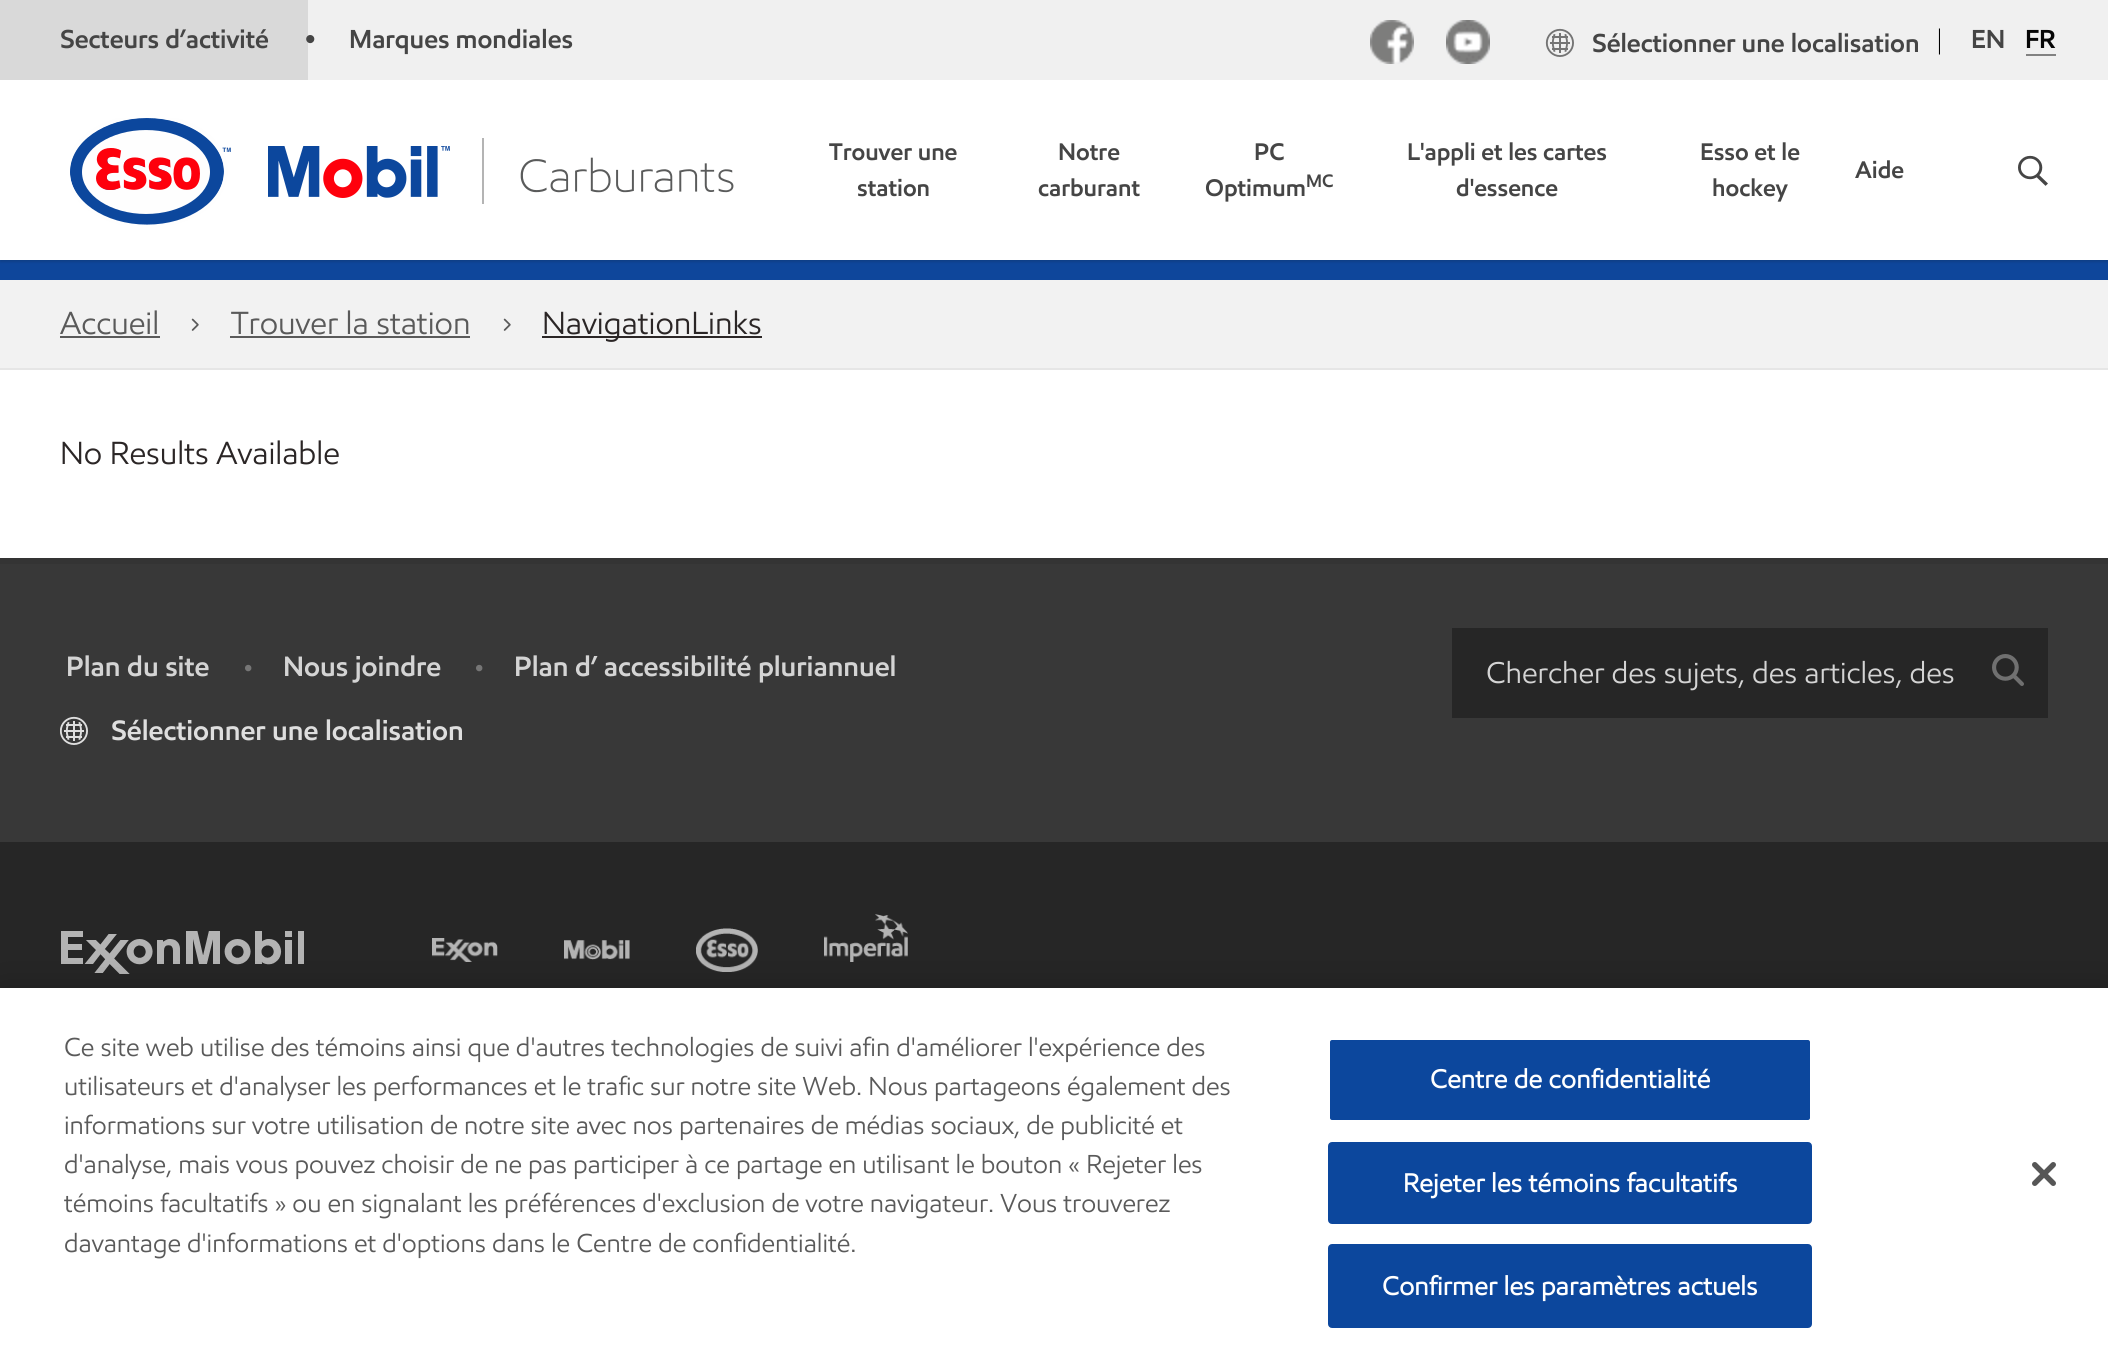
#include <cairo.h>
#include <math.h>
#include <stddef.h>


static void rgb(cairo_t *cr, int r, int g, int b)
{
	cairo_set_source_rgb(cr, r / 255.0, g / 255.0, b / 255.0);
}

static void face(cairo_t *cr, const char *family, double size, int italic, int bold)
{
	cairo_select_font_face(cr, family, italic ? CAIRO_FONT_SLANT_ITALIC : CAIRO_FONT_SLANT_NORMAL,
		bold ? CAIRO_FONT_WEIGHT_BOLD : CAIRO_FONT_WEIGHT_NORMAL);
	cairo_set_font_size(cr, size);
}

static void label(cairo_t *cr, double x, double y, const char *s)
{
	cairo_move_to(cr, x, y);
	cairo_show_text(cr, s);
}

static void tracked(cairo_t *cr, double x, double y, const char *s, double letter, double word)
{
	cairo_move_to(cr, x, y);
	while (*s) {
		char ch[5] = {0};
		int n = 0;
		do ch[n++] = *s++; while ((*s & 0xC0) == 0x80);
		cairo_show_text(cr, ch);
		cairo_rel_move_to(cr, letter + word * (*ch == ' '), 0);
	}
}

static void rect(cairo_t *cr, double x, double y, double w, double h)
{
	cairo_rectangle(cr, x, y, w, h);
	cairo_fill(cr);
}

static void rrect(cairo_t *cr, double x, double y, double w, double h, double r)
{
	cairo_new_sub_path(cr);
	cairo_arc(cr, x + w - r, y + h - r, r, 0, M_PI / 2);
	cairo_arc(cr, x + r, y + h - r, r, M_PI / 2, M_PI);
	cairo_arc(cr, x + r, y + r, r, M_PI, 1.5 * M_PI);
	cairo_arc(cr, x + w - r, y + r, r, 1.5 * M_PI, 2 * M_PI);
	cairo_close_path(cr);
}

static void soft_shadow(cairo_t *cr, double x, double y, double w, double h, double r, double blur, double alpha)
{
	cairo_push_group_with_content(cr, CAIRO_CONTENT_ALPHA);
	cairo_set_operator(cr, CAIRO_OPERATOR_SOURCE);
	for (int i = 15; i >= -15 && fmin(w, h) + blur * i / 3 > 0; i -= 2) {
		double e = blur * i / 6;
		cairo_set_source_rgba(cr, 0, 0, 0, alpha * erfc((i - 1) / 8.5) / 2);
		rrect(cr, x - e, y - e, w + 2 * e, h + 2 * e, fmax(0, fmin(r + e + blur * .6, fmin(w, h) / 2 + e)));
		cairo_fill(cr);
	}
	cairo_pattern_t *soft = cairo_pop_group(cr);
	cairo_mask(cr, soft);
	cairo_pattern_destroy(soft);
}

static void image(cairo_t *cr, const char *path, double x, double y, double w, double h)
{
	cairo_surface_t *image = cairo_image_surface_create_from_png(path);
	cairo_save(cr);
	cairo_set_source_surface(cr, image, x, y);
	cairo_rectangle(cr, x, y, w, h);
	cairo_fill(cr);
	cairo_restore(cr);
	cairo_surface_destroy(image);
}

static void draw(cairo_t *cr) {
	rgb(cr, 255, 255, 255);
	cairo_paint(cr);
	rgb(cr, 14, 70, 155);
	rect(cr, 0, 260, 2108, 20);
	rgb(cr, 17, 17, 17);
	soft_shadow(cr, 0, 2, 2108, 260, 0, 1, 0.15);
	rgb(cr, 240, 240, 240);
	rect(cr, 308, 0, 1800, 80);
	rgb(cr, 217, 217, 217);
	rect(cr, 0, 0, 308, 80);
	face(cr, "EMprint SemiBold", 26, 0, 0);
	rgb(cr, 69, 69, 69);
	label(cr, 60, 48, "Secteurs d’activité");
	face(cr, "Liberation Sans", 30, 0, 0);
	label(cr, 305, 49, "•");
	face(cr, "EMprint SemiBold", 26, 0, 0);
	label(cr, 349, 48, "Marques mondiales");
	image(cr, "image0.png", 1370, 20, 44, 44);
	image(cr, "image1.png", 1446, 20, 44, 44);
	image(cr, "image2.png", 1545, 28, 29, 29);
	label(cr, 1592, 52, "Sélectionner une localisation");
	face(cr, "EMprint Light", 26, 0, 0);
	rgb(cr, 0, 0, 0);
	label(cr, 1936, 48, "|");
	face(cr, "EMprint SemiBold", 26, 0, 0);
	rgb(cr, 69, 69, 69);
	label(cr, 1971, 48, "EN");
	rgb(cr, 130, 130, 130);
	rect(cr, 2026, 54, 30, 2);
	rgb(cr, 6, 6, 6);
	label(cr, 2025, 48, "FR");
	rgb(cr, 255, 255, 255);
	rect(cr, 0, 80, 2108, 180);
	image(cr, "image3.png", 70, 118, 664, 107);
	face(cr, "EMprint SemiBold", 24, 0, 0);
	rgb(cr, 69, 69, 69);
	label(cr, 829, 160, "Trouver une");
	label(cr, 857, 196, "station");
	label(cr, 1058, 160, "Notre");
	label(cr, 1038, 196, "carburant");
	label(cr, 1254, 160, "PC");
	label(cr, 1205, 196, "Optimum");
	face(cr, "EMprint SemiBold", 18, 0, 0);
	label(cr, 1306, 187, "MC");
	face(cr, "EMprint SemiBold", 24, 0, 0);
	label(cr, 1407, 160, "L'appli et les cartes");
	label(cr, 1456, 196, "d'essence");
	label(cr, 1700, 160, "Esso et le");
	label(cr, 1712, 196, "hockey");
	label(cr, 1855, 178, "Aide");
	image(cr, "image4.png", 2018, 155, 30, 31);
	rgb(cr, 242, 242, 242);
	rect(cr, 0, 280, 2108, 88);
	rgb(cr, 230, 230, 230);
	rect(cr, 0, 368, 2108, 2);
	face(cr, "EMprint", 32, 0, 0);
	rgb(cr, 90, 90, 90);
	label(cr, 60, 334, "Accueil");
	rect(cr, 60, 336, 100, 2);
	image(cr, "image5.png", 191, 318, 8, 13);
	label(cr, 231, 334, "Trouver la station");
	rect(cr, 230, 336, 240, 2);
	image(cr, "image5.png", 503, 318, 8, 13);
	rgb(cr, 43, 38, 38);
	rect(cr, 542, 336, 220, 2);
	label(cr, 542, 334, "NavigationLinks");
	label(cr, 60, 464, "No Results Available");
	rgb(cr, 56, 56, 56);
	rect(cr, 0, 564, 2108, 278);
	rgb(cr, 52, 52, 52);
	rect(cr, 0, 558, 2108, 6);
	face(cr, "EMprint SemiBold", 28, 0, 0);
	rgb(cr, 212, 212, 212);
	label(cr, 66, 676, "Plan du site");
	face(cr, "Liberation Serif", 24, 0, 1);
	rgb(cr, 118, 118, 118);
	label(cr, 244, 676, "•");
	face(cr, "EMprint SemiBold", 28, 0, 0);
	rgb(cr, 212, 212, 212);
	label(cr, 283, 676, "Nous joindre");
	face(cr, "Liberation Serif", 24, 0, 1);
	rgb(cr, 118, 118, 118);
	label(cr, 475, 676, "•");
	face(cr, "EMprint SemiBold", 28, 0, 0);
	rgb(cr, 212, 212, 212);
	label(cr, 514, 676, "Plan d’ accessibilité pluriannuel");
	image(cr, "image6.png", 60, 716, 28, 29);
	rgb(cr, 222, 222, 222);
	label(cr, 111, 740, "Sélectionner une localisation");
	rgb(cr, 38, 38, 38);
	rect(cr, 1452, 628, 596, 90);
	face(cr, "EMprint", 30, 0, 0);
	rgb(cr, 212, 212, 212);
	label(cr, 1486, 683, "Chercher des sujets, des articles, des");
	image(cr, "image7.png", 1992, 654, 32, 32);
	rgb(cr, 38, 38, 38);
	rect(cr, 0, 842, 2108, 146);
	image(cr, "image8.png", 61, 931, 243, 43);
	image(cr, "image9.png", 432, 938, 66, 24);
	image(cr, "image10.png", 564, 940, 66, 20);
	image(cr, "image11.png", 696, 928, 62, 44);
	image(cr, "image12.png", 824, 914, 84, 48);
	rgb(cr, 0, 0, 0);
	soft_shadow(cr, 0, 988, 2108, 380, 0, 18, 0.2);
	rgb(cr, 255, 255, 255);
	rect(cr, 0, 988, 2108, 380);
	face(cr, "EMprint", 26, 0, 0);
	rgb(cr, 90, 90, 90);
	label(cr, 64, 1056, "Ce site web utilise des témoins ainsi que d'autres technologies de suivi afin d'améliorer l'expérience des");
	label(cr, 64, 1095, "utilisateurs et d'analyser les performances et le trafic sur notre site Web. Nous partageons également des");
	label(cr, 64, 1134, "informations sur votre utilisation de notre site avec nos partenaires de médias sociaux, de publicité et");
	label(cr, 64, 1173, "d'analyse, mais vous pouvez choisir de ne pas participer à ce partage en utilisant le bouton « Rejeter les");
	label(cr, 64, 1212, "témoins facultatifs » ou en signalant les préférences d'exclusion de votre navigateur. Vous trouverez");
	label(cr, 64, 1252, "davantage d'informations et d'options dans le Centre de confidentialité.");
	rgb(cr, 12, 71, 157);
	rrect(cr, 1329, 1039, 482, 82, 3);
	cairo_fill_preserve(cr);
	rgb(cr, 255, 255, 255);
	cairo_stroke(cr);
	face(cr, "EMprint", 26, 0, 1);
	tracked(cr, 1430, 1088, "Centre de confidentialité", 0.25, 0);
	rgb(cr, 12, 71, 157);
	rrect(cr, 1329, 1143, 482, 80, 3);
	cairo_fill_preserve(cr);
	cairo_stroke(cr);
	rgb(cr, 255, 255, 255);
	tracked(cr, 1403, 1192, "Rejeter les témoins facultatifs", 0.25, 0);
	rgb(cr, 12, 71, 157);
	rrect(cr, 1329, 1245, 482, 82, 3);
	cairo_fill_preserve(cr);
	cairo_stroke(cr);
	rgb(cr, 255, 255, 255);
	tracked(cr, 1382, 1295, "Confirmer les paramètres actuels", 0.25, 0);
	image(cr, "image13.png", 2032, 1162, 24, 24);
}

int main(void) {
	cairo_surface_t *surface = cairo_image_surface_create(CAIRO_FORMAT_RGB24, 2108, 1368);
	cairo_t *cr = cairo_create(surface);
	cairo_font_options_t *options = cairo_font_options_create();
	cairo_font_options_set_hint_metrics(options, CAIRO_HINT_METRICS_OFF);
	cairo_font_options_set_hint_style(options, CAIRO_HINT_STYLE_NONE);
	cairo_set_font_options(cr, options);
	cairo_set_miter_limit(cr, 4);
	draw(cr);
	cairo_surface_write_to_png(surface, "render.png");
	cairo_font_options_destroy(options);
	cairo_destroy(cr);
	cairo_surface_destroy(surface);
	return 0;
}
